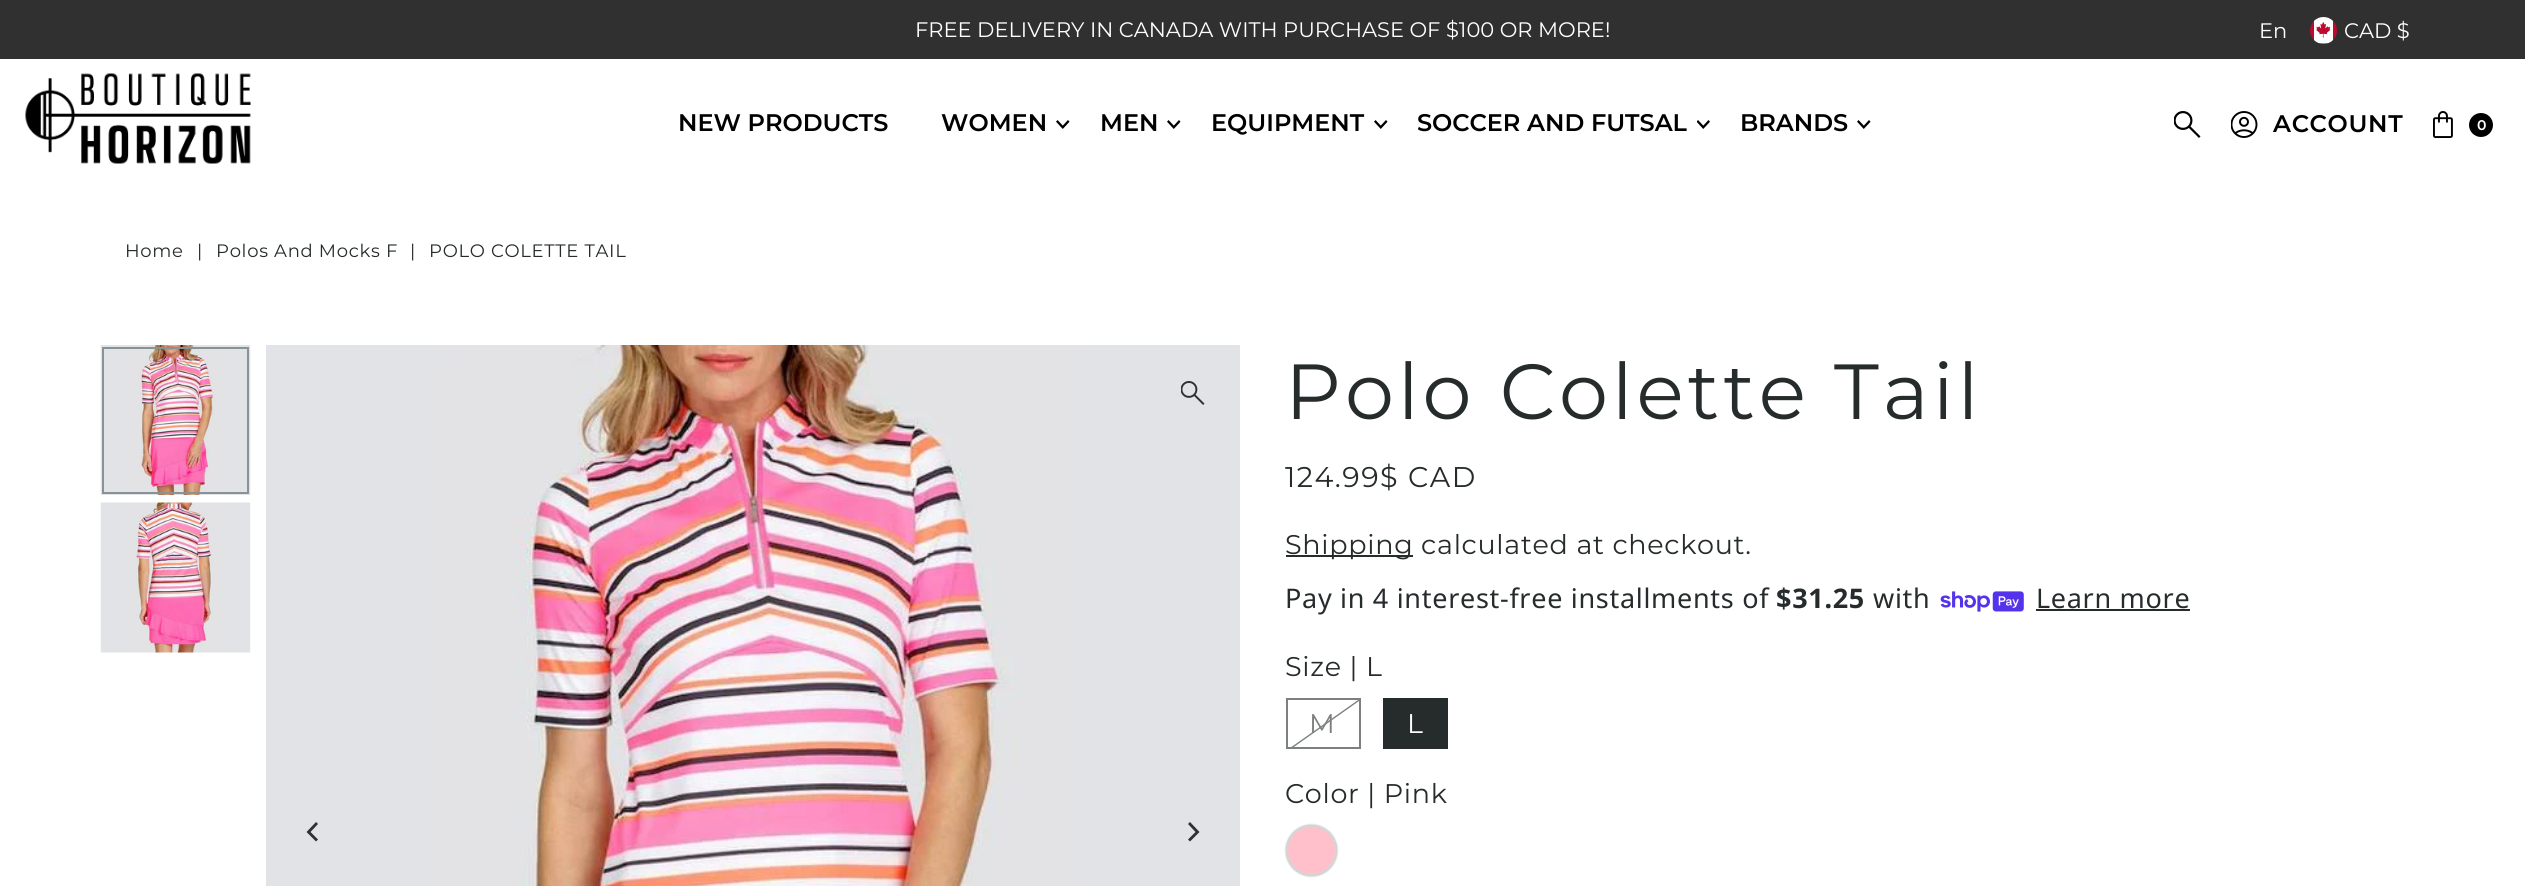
#include <cairo.h>
#include <math.h>
#include <stddef.h>


static void rgb(cairo_t *cr, int r, int g, int b)
{
	cairo_set_source_rgb(cr, r / 255.0, g / 255.0, b / 255.0);
}

static void face(cairo_t *cr, const char *family, double size, int italic, int bold)
{
	cairo_select_font_face(cr, family, italic ? CAIRO_FONT_SLANT_ITALIC : CAIRO_FONT_SLANT_NORMAL,
		bold ? CAIRO_FONT_WEIGHT_BOLD : CAIRO_FONT_WEIGHT_NORMAL);
	cairo_set_font_size(cr, size);
}

static void label(cairo_t *cr, double x, double y, const char *s)
{
	cairo_move_to(cr, x, y);
	cairo_show_text(cr, s);
}

static void tracked(cairo_t *cr, double x, double y, const char *s, double letter, double word)
{
	cairo_move_to(cr, x, y);
	while (*s) {
		char ch[5] = {0};
		int n = 0;
		do ch[n++] = *s++; while ((*s & 0xC0) == 0x80);
		cairo_show_text(cr, ch);
		cairo_rel_move_to(cr, letter + word * (*ch == ' '), 0);
	}
}

static void rect(cairo_t *cr, double x, double y, double w, double h)
{
	cairo_rectangle(cr, x, y, w, h);
	cairo_fill(cr);
}

static void rrect(cairo_t *cr, double x, double y, double w, double h, double r)
{
	cairo_new_sub_path(cr);
	cairo_arc(cr, x + w - r, y + h - r, r, 0, M_PI / 2);
	cairo_arc(cr, x + r, y + h - r, r, M_PI / 2, M_PI);
	cairo_arc(cr, x + r, y + r, r, M_PI, 1.5 * M_PI);
	cairo_arc(cr, x + w - r, y + r, r, 1.5 * M_PI, 2 * M_PI);
	cairo_close_path(cr);
}

static void soft_shadow(cairo_t *cr, double x, double y, double w, double h, double r, double blur, double alpha)
{
	cairo_push_group_with_content(cr, CAIRO_CONTENT_ALPHA);
	cairo_set_operator(cr, CAIRO_OPERATOR_SOURCE);
	for (int i = 15; i >= -15 && fmin(w, h) + blur * i / 3 > 0; i -= 2) {
		double e = blur * i / 6;
		cairo_set_source_rgba(cr, 0, 0, 0, alpha * erfc((i - 1) / 8.5) / 2);
		rrect(cr, x - e, y - e, w + 2 * e, h + 2 * e, fmax(0, fmin(r + e + blur * .6, fmin(w, h) / 2 + e)));
		cairo_fill(cr);
	}
	cairo_pattern_t *soft = cairo_pop_group(cr);
	cairo_mask(cr, soft);
	cairo_pattern_destroy(soft);
}

static void image(cairo_t *cr, const char *path, double x, double y, double w, double h)
{
	cairo_surface_t *image = cairo_image_surface_create_from_png(path);
	cairo_save(cr);
	cairo_set_source_surface(cr, image, x, y);
	cairo_rectangle(cr, x, y, w, h);
	cairo_fill(cr);
	cairo_restore(cr);
	cairo_surface_destroy(image);
}

static void draw(cairo_t *cr) {
	rgb(cr, 255, 255, 255);
	cairo_paint(cr);
	rgb(cr, 48, 48, 48);
	rect(cr, 0, 0, 2525, 59);
	face(cr, "Montserrat", 21, 0, 0);
	rgb(cr, 255, 255, 255);
	label(cr, 915, 37, "FREE DELIVERY IN CANADA WITH PURCHASE OF $100 OR MORE!");
	label(cr, 2259, 38, "En");
	image(cr, "image0.png", 2310, 17, 27, 27);
	label(cr, 2344, 38, "CAD $");
	image(cr, "image1.png", 25, 73, 226, 91);
	face(cr, "Montserrat SemiBold", 24, 0, 0);
	rgb(cr, 0, 0, 0);
	label(cr, 678, 131, "NEW PRODUCTS");
	label(cr, 941, 131, "WOMEN");
	image(cr, "image2.png", 1056, 120, 14, 9);
	label(cr, 1100, 131, "MEN");
	image(cr, "image2.png", 1167, 120, 14, 9);
	label(cr, 1211, 131, "EQUIPMENT");
	image(cr, "image2.png", 1374, 120, 14, 9);
	label(cr, 1417, 131, "SOCCER AND FUTSAL");
	image(cr, "image3.png", 1697, 120, 13, 9);
	label(cr, 1740, 131, "BRANDS");
	image(cr, "image2.png", 1857, 120, 14, 9);
	image(cr, "image4.png", 2174, 111, 27, 27);
	image(cr, "image5.png", 2231, 111, 27, 27);
	tracked(cr, 2273, 132, "ACCOUNT", 0.7, 0);
	image(cr, "image6.png", 2433, 111, 20, 27);
	cairo_arc(cr, 2481, 125, 12, 0, 2 * M_PI);
	cairo_fill(cr);
	face(cr, "Montserrat SemiBold", 14, 0, 0);
	rgb(cr, 255, 255, 255);
	label(cr, 2477, 130, "0");
	face(cr, "Montserrat", 18, 0, 0);
	rgb(cr, 38, 43, 44);
	tracked(cr, 125, 257, "Home", 0.7, 0);
	tracked(cr, 197, 257, "|", 0.7, 0);
	tracked(cr, 216, 257, "Polos And Mocks F", 0.7, 0);
	tracked(cr, 410, 257, "|", 0.7, 0);
	tracked(cr, 429, 257, "POLO COLETTE TAIL", 0.7, 0);
	image(cr, "image7.png", 100, 345, 151, 150);
	cairo_rectangle(cr, 103, 348, 145, 145);
	rgb(cr, 135, 148, 151);
	cairo_stroke(cr);
	image(cr, "image8.png", 100, 502, 151, 151);
	image(cr, "image9.png", 266, 345, 974, 541);
	image(cr, "image10.png", 1181, 381, 24, 24);
	rgb(cr, 48, 48, 48);
	cairo_new_path(cr);
	cairo_move_to(cr, 306.5, 832);
	cairo_line_to(cr, 316, 841.5);
	cairo_line_to(cr, 318, 839.5);
	cairo_line_to(cr, 310.5, 832);
	cairo_line_to(cr, 318, 824);
	cairo_line_to(cr, 316, 822);
	cairo_close_path(cr);
	cairo_fill(cr);
	cairo_new_path(cr);
	cairo_move_to(cr, 1199.5, 832);
	cairo_line_to(cr, 1190, 822);
	cairo_line_to(cr, 1188, 824);
	cairo_line_to(cr, 1195.5, 832);
	cairo_line_to(cr, 1188, 839.5);
	cairo_line_to(cr, 1190, 841.5);
	cairo_close_path(cr);
	cairo_fill(cr);
	face(cr, "Montserrat", 78, 0, 0);
	rgb(cr, 38, 43, 44);
	tracked(cr, 1285, 419, "Polo Colette Tail", 3.9, 0);
	face(cr, "Montserrat", 28.5, 0, 0);
	tracked(cr, 1285, 487, "124.99$ CAD", 1.5, 0);
	rect(cr, 1286, 555, 127, 2);
	face(cr, "Montserrat", 27, 0, 0);
	tracked(cr, 1285, 554, "Shipping calculated at checkout.", 0.7, 0);
	face(cr, "Noto Sans", 27, 0, 0);
	tracked(cr, 1285, 608, "Pay in 4 interest-free installments of", 0.7, 0);
	face(cr, "Noto Sans", 27, 0, 1);
	tracked(cr, 1776, 608, "$31.25", 0.7, 0);
	face(cr, "Noto Sans", 27, 0, 0);
	tracked(cr, 1873, 608, "with", 0.7, 0);
	image(cr, "image11.png", 1940, 591, 84, 21);
	tracked(cr, 2036, 608, "Learn more", 0.7, 0);
	rect(cr, 2036, 609, 154, 2);
	face(cr, "Montserrat", 27, 0, 0);
	tracked(cr, 1285, 676, "Size | L", 0.7, 0);
	cairo_rectangle(cr, 1287, 699, 73, 49);
	rgb(cr, 125, 128, 128);
	cairo_stroke(cr);
	cairo_save(cr);
	cairo_rectangle(cr, 1287, 699, 72, 48);
	cairo_clip(cr);
	cairo_new_path(cr);
	cairo_move_to(cr, 1368, 693);
	cairo_line_to(cr, 1369, 694);
	cairo_line_to(cr, 1281, 756);
	cairo_line_to(cr, 1280, 755);
	cairo_close_path(cr);
	cairo_fill(cr);
	cairo_restore(cr);
	tracked(cr, 1309, 733, "M", 0.7, 0);
	rgb(cr, 38, 43, 44);
	rect(cr, 1383, 698, 65, 51);
	rgb(cr, 255, 255, 255);
	tracked(cr, 1407, 733, "L", 0.7, 0);
	rgb(cr, 38, 43, 44);
	tracked(cr, 1285, 803, "Color | Pink", 0.7, 0);
	rgb(cr, 170, 170, 170);
	soft_shadow(cr, 1286, 825, 51, 51, 25.5, 1, 1);
	rgb(cr, 255, 192, 203);
	cairo_arc(cr, 1311.5, 850.5, 24.5, 0, 2 * M_PI);
	cairo_fill_preserve(cr);
	rgb(cr, 213, 213, 213);
	cairo_stroke(cr);
}

int main(void) {
	cairo_surface_t *surface = cairo_image_surface_create(CAIRO_FORMAT_RGB24, 2525, 886);
	cairo_t *cr = cairo_create(surface);
	cairo_font_options_t *options = cairo_font_options_create();
	cairo_font_options_set_hint_metrics(options, CAIRO_HINT_METRICS_OFF);
	cairo_font_options_set_hint_style(options, CAIRO_HINT_STYLE_NONE);
	cairo_set_font_options(cr, options);
	cairo_set_miter_limit(cr, 4);
	draw(cr);
	cairo_surface_write_to_png(surface, "render.png");
	cairo_font_options_destroy(options);
	cairo_destroy(cr);
	cairo_surface_destroy(surface);
	return 0;
}
